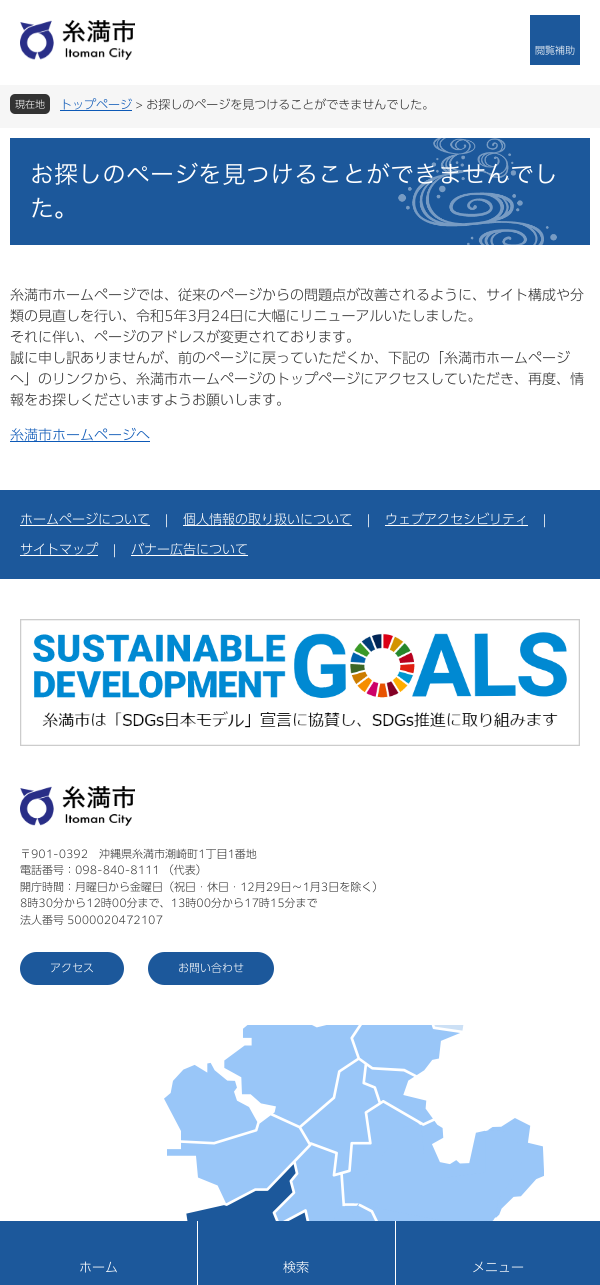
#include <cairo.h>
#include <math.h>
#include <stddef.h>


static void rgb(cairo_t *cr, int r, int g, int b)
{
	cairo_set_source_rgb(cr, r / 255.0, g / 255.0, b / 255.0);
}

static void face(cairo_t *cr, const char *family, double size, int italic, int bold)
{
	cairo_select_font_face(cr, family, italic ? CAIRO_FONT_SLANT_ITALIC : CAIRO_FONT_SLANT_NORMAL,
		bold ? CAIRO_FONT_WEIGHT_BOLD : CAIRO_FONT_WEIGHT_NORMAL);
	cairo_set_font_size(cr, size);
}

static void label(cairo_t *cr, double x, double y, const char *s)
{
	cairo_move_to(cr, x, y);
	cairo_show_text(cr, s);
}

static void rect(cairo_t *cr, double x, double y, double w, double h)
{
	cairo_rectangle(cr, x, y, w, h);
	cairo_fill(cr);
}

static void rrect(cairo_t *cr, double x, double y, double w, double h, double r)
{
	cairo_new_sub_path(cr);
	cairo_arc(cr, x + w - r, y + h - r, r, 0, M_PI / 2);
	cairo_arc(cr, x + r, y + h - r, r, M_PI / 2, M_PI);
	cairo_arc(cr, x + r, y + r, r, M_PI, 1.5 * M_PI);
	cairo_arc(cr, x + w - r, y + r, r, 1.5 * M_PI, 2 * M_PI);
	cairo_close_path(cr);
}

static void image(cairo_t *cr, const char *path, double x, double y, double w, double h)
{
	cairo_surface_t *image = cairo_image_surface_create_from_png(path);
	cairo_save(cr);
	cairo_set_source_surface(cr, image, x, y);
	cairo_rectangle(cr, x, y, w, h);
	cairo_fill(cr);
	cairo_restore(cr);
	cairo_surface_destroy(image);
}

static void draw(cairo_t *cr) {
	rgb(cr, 255, 255, 255);
	cairo_paint(cr);
	image(cr, "image0.png", 20, 20, 115, 40);
	rgb(cr, 28, 88, 155);
	rect(cr, 530, 15, 50, 50);
	face(cr, "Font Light", 10, 0, 0);
	rgb(cr, 255, 255, 255);
	label(cr, 535, 54, "閲覧補助");
	rgb(cr, 28, 88, 155);
	rect(cr, 0, 1221, 197, 64);
	face(cr, "Font Light", 13, 0, 0);
	rgb(cr, 255, 255, 255);
	label(cr, 79, 1272, "ホーム");
	rgb(cr, 28, 88, 155);
	rect(cr, 198, 1221, 197, 64);
	rgb(cr, 255, 255, 255);
	label(cr, 283, 1272, "検索");
	rgb(cr, 28, 88, 155);
	rect(cr, 396, 1221, 204, 64);
	rgb(cr, 255, 255, 255);
	label(cr, 472, 1272, "メニュー");
	rgb(cr, 246, 246, 246);
	rect(cr, 0, 85, 600, 43);
	rgb(cr, 51, 51, 51);
	rrect(cr, 10, 94, 40, 20, 5);
	cairo_fill(cr);
	face(cr, "Font Light", 10, 0, 0);
	rgb(cr, 255, 255, 255);
	label(cr, 15, 108, "現在地");
	face(cr, "Font Light", 12, 0, 0);
	rgb(cr, 13, 89, 183);
	label(cr, 60, 109, "トップページ");
	rect(cr, 60, 110, 72, 1);
	rgb(cr, 51, 51, 51);
	label(cr, 135, 109, "> お探しのページを見つけることができませんでした。");
	rgb(cr, 28, 88, 155);
	rect(cr, 10, 138, 580, 107);
	image(cr, "image1.png", 398, 138, 159, 107);
	face(cr, "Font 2 Light", 24, 0, 0);
	rgb(cr, 255, 255, 255);
	label(cr, 30, 183, "お探しのページを見つけることができませんでし");
	label(cr, 30, 217, "た。");
	face(cr, "Font Light", 14, 0, 0);
	rgb(cr, 51, 51, 51);
	label(cr, 10, 300, "糸満市ホームページでは、従来のページからの問題点が改善されるように、サイト構成や分");
	label(cr, 10, 321, "類の見直しを行い、令和5年3月24日に大幅にリニューアルいたしました。");
	label(cr, 10, 342, "それに伴い、ページのアドレスが変更されております。");
	label(cr, 10, 363, "誠に申し訳ありませんが、前のページに戻っていただくか、下記の「糸満市ホームページ");
	label(cr, 10, 384, "へ」のリンクから、糸満市ホームページのトップページにアクセスしていただき、再度、情");
	label(cr, 10, 405, "報をお探しくださいますようお願いします。");
	rgb(cr, 13, 89, 183);
	rect(cr, 10, 441, 140, 1);
	label(cr, 10, 440, "糸満市ホームページへ");
	rgb(cr, 28, 88, 155);
	rect(cr, 0, 490, 600, 89);
	face(cr, "Font Light", 13, 0, 0);
	rgb(cr, 255, 255, 255);
	label(cr, 20, 524, "ホームページについて");
	rect(cr, 20, 525, 130, 1);
	face(cr, "WenQuanYi Zen Hei Medium", 13, 0, 0);
	label(cr, 160, 524, "｜");
	rect(cr, 183, 525, 169, 1);
	face(cr, "Font Light", 13, 0, 0);
	label(cr, 183, 524, "個人情報の取り扱いについて");
	face(cr, "WenQuanYi Zen Hei Medium", 13, 0, 0);
	label(cr, 362, 524, "｜");
	face(cr, "Font Light", 13, 0, 0);
	label(cr, 385, 524, "ウェブアクセシビリティ");
	rect(cr, 385, 525, 143, 1);
	face(cr, "WenQuanYi Zen Hei Medium", 13, 0, 0);
	label(cr, 538, 524, "｜");
	face(cr, "Font Light", 13, 0, 0);
	label(cr, 20, 554, "サイトマップ");
	rect(cr, 20, 555, 78, 1);
	face(cr, "WenQuanYi Zen Hei Medium", 13, 0, 0);
	label(cr, 108, 554, "｜");
	rect(cr, 131, 555, 117, 1);
	face(cr, "Font Light", 13, 0, 0);
	label(cr, 131, 554, "バナー広告について");
	image(cr, "image2.png", 20, 619, 560, 127);
	image(cr, "image3.png", 20, 786, 115, 40);
	face(cr, "Font Light", 11, 0, 0);
	rgb(cr, 51, 51, 51);
	label(cr, 20, 858, "〒901-0392　沖縄県糸満市潮崎町1丁目1番地");
	label(cr, 20, 874, "電話番号：098-840-8111 （代表）");
	label(cr, 20, 891, "開庁時間：月曜日から金曜日（祝日・休日・12月29日～1月3日を除く）");
	label(cr, 20, 907, "8時30分から12時00分まで、13時00分から17時15分まで");
	label(cr, 20, 924, "法人番号 5000020472107");
	rgb(cr, 28, 88, 155);
	rrect(cr, 20, 952, 104, 33, 16.5);
	cairo_fill(cr);
	rgb(cr, 255, 255, 255);
	label(cr, 50, 972, "アクセス");
	rgb(cr, 28, 88, 155);
	rrect(cr, 148, 952, 126, 33, 16.5);
	cairo_fill(cr);
	rgb(cr, 255, 255, 255);
	label(cr, 178, 972, "お問い合わせ");
	image(cr, "image4.png", 84, 1025, 460, 196);
}

int main(void) {
	cairo_surface_t *surface = cairo_image_surface_create(CAIRO_FORMAT_RGB24, 600, 1285);
	cairo_t *cr = cairo_create(surface);
	cairo_font_options_t *options = cairo_font_options_create();
	cairo_font_options_set_hint_metrics(options, CAIRO_HINT_METRICS_OFF);
	cairo_font_options_set_hint_style(options, CAIRO_HINT_STYLE_NONE);
	cairo_set_font_options(cr, options);
	cairo_set_miter_limit(cr, 4);
	draw(cr);
	cairo_surface_write_to_png(surface, "render.png");
	cairo_font_options_destroy(options);
	cairo_destroy(cr);
	cairo_surface_destroy(surface);
	return 0;
}
